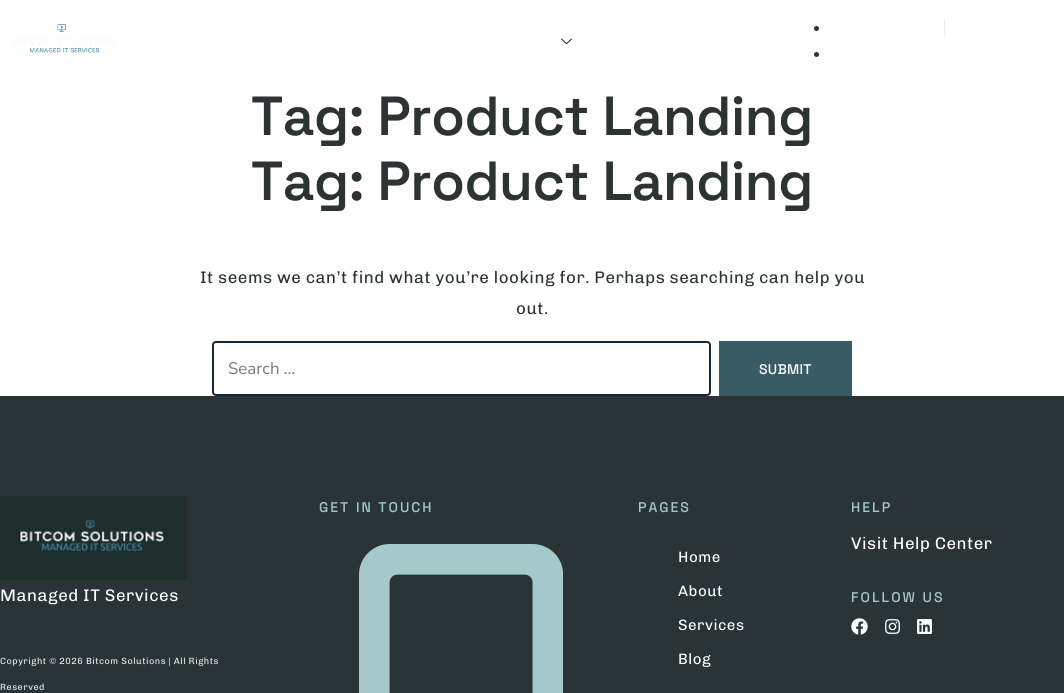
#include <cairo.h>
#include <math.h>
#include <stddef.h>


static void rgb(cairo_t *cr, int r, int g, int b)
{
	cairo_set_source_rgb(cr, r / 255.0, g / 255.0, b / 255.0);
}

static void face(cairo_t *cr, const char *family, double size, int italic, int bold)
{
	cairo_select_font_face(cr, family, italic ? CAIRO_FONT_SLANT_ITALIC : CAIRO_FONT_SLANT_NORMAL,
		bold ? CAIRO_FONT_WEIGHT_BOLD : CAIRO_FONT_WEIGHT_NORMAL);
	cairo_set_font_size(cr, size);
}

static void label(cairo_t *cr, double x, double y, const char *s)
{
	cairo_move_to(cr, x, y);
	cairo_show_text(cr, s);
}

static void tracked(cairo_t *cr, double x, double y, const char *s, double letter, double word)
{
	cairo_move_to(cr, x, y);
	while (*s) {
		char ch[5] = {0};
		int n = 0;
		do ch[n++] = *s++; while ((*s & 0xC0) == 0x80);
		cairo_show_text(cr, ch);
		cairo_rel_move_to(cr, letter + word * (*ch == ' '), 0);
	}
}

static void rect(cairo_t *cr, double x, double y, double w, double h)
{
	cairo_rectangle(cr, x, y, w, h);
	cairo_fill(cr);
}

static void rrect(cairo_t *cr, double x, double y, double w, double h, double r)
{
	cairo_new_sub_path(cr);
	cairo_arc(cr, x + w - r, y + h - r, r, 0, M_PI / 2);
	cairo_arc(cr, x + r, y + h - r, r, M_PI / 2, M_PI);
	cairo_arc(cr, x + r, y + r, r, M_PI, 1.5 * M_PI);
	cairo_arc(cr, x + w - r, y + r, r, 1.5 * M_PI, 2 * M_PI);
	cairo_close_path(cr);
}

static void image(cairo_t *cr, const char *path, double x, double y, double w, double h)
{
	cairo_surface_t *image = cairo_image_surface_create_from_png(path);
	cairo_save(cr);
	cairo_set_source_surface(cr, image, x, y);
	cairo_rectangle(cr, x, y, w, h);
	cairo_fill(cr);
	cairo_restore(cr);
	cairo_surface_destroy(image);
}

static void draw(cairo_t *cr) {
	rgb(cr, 255, 255, 255);
	cairo_paint(cr);
	image(cr, "image0.png", 14, 24, 100, 29);
	image(cr, "image1.png", 561, 38, 11, 7);
	rgb(cr, 44, 51, 51);
	cairo_arc(cr, 816.5, 28.5, 2.5, 0, 2 * M_PI);
	cairo_fill(cr);
	rgb(cr, 238, 238, 238);
	rect(cr, 944, 19, 1, 19);
	rgb(cr, 44, 51, 51);
	cairo_arc(cr, 816.5, 54.5, 2.5, 0, 2 * M_PI);
	cairo_fill(cr);
	face(cr, "Space Grotesk SemiBold", 55, 0, 0);
	tracked(cr, 251, 135, "Tag: Product Landing", -0.5, 0);
	tracked(cr, 251, 200, "Tag: Product Landing", -0.5, 0);
	face(cr, "Chivo", 16.8, 0, 0);
	tracked(cr, 200, 283, "It seems we can’t find what you’re looking for. Perhaps searching can help you", 0.5, 0);
	tracked(cr, 516, 314, "out.", 0.5, 0);
	rrect(cr, 213, 342, 497, 53, 3);
	rgb(cr, 19, 38, 58);
	cairo_stroke(cr);
	face(cr, "Nunito Sans", 16.8, 0, 0);
	rgb(cr, 120, 120, 120);
	label(cr, 228, 374, "Search …");
	rgb(cr, 57, 91, 100);
	rect(cr, 719, 341, 133, 55);
	face(cr, "Space Grotesk Medium", 14, 0, 0);
	rgb(cr, 255, 255, 255);
	tracked(cr, 759, 374, "SUBMIT", 0.25, 0);
	rgb(cr, 42, 52, 55);
	rect(cr, 0, 396, 1064, 297);
	rgb(cr, 165, 201, 202);
	tracked(cr, 319, 512, "GET IN TOUCH", 2, 0);
	image(cr, "image2.png", 359, 544, 204, 149);
	tracked(cr, 638, 512, "PAGES", 2, 0);
	rgb(cr, 44, 51, 51);
	cairo_new_path(cr);
	cairo_arc(cr, 663.5, 556.5, 2.5, 0, 2 * M_PI);
	cairo_fill(cr);
	face(cr, "Chivo", 15, 0, 0);
	rgb(cr, 255, 255, 255);
	tracked(cr, 678, 562, "Home", 0.5, 0);
	rgb(cr, 44, 51, 51);
	cairo_new_path(cr);
	cairo_arc(cr, 663.5, 590.5, 2.5, 0, 2 * M_PI);
	cairo_fill(cr);
	rgb(cr, 255, 255, 255);
	tracked(cr, 678, 596, "About", 0.5, 0);
	rgb(cr, 44, 51, 51);
	cairo_new_path(cr);
	cairo_arc(cr, 663.5, 624.5, 2.5, 0, 2 * M_PI);
	cairo_fill(cr);
	rgb(cr, 255, 255, 255);
	tracked(cr, 678, 630, "Services", 0.5, 0);
	rgb(cr, 44, 51, 51);
	cairo_new_path(cr);
	cairo_arc(cr, 663.5, 658.5, 2.5, 0, 2 * M_PI);
	cairo_fill(cr);
	rgb(cr, 255, 255, 255);
	tracked(cr, 678, 664, "Blog", 0.5, 0);
	face(cr, "Space Grotesk Medium", 14, 0, 0);
	rgb(cr, 165, 201, 202);
	tracked(cr, 851, 512, "HELP", 2, 0);
	face(cr, "Chivo", 16.8, 0, 0);
	rgb(cr, 255, 255, 255);
	tracked(cr, 851, 549, "Visit Help Center", 0.5, 0);
	face(cr, "Space Grotesk Medium", 14, 0, 0);
	rgb(cr, 165, 201, 202);
	tracked(cr, 851, 602, "FOLLOW US", 2, 0);
	image(cr, "image3.png", 851, 618, 17, 17);
	image(cr, "image4.png", 885, 619, 15, 15);
	image(cr, "image5.png", 917, 619, 15, 15);
	image(cr, "image6.png", 0, 496, 187, 84);
	face(cr, "Chivo", 16.8, 0, 0);
	rgb(cr, 255, 255, 255);
	tracked(cr, 0, 601, "Managed IT Services", 0.5, 0);
	face(cr, "Chivo", 9, 0, 0);
	rgb(cr, 238, 238, 238);
	tracked(cr, 0, 664, "Copyright © 2026 Bitcom Solutions | All Rights", 0.5, 0);
	tracked(cr, 0, 690, "Reserved", 0.5, 0);
}

int main(void) {
	cairo_surface_t *surface = cairo_image_surface_create(CAIRO_FORMAT_RGB24, 1064, 693);
	cairo_t *cr = cairo_create(surface);
	cairo_font_options_t *options = cairo_font_options_create();
	cairo_font_options_set_hint_metrics(options, CAIRO_HINT_METRICS_OFF);
	cairo_font_options_set_hint_style(options, CAIRO_HINT_STYLE_NONE);
	cairo_set_font_options(cr, options);
	cairo_set_miter_limit(cr, 4);
	draw(cr);
	cairo_surface_write_to_png(surface, "render.png");
	cairo_font_options_destroy(options);
	cairo_destroy(cr);
	cairo_surface_destroy(surface);
	return 0;
}
